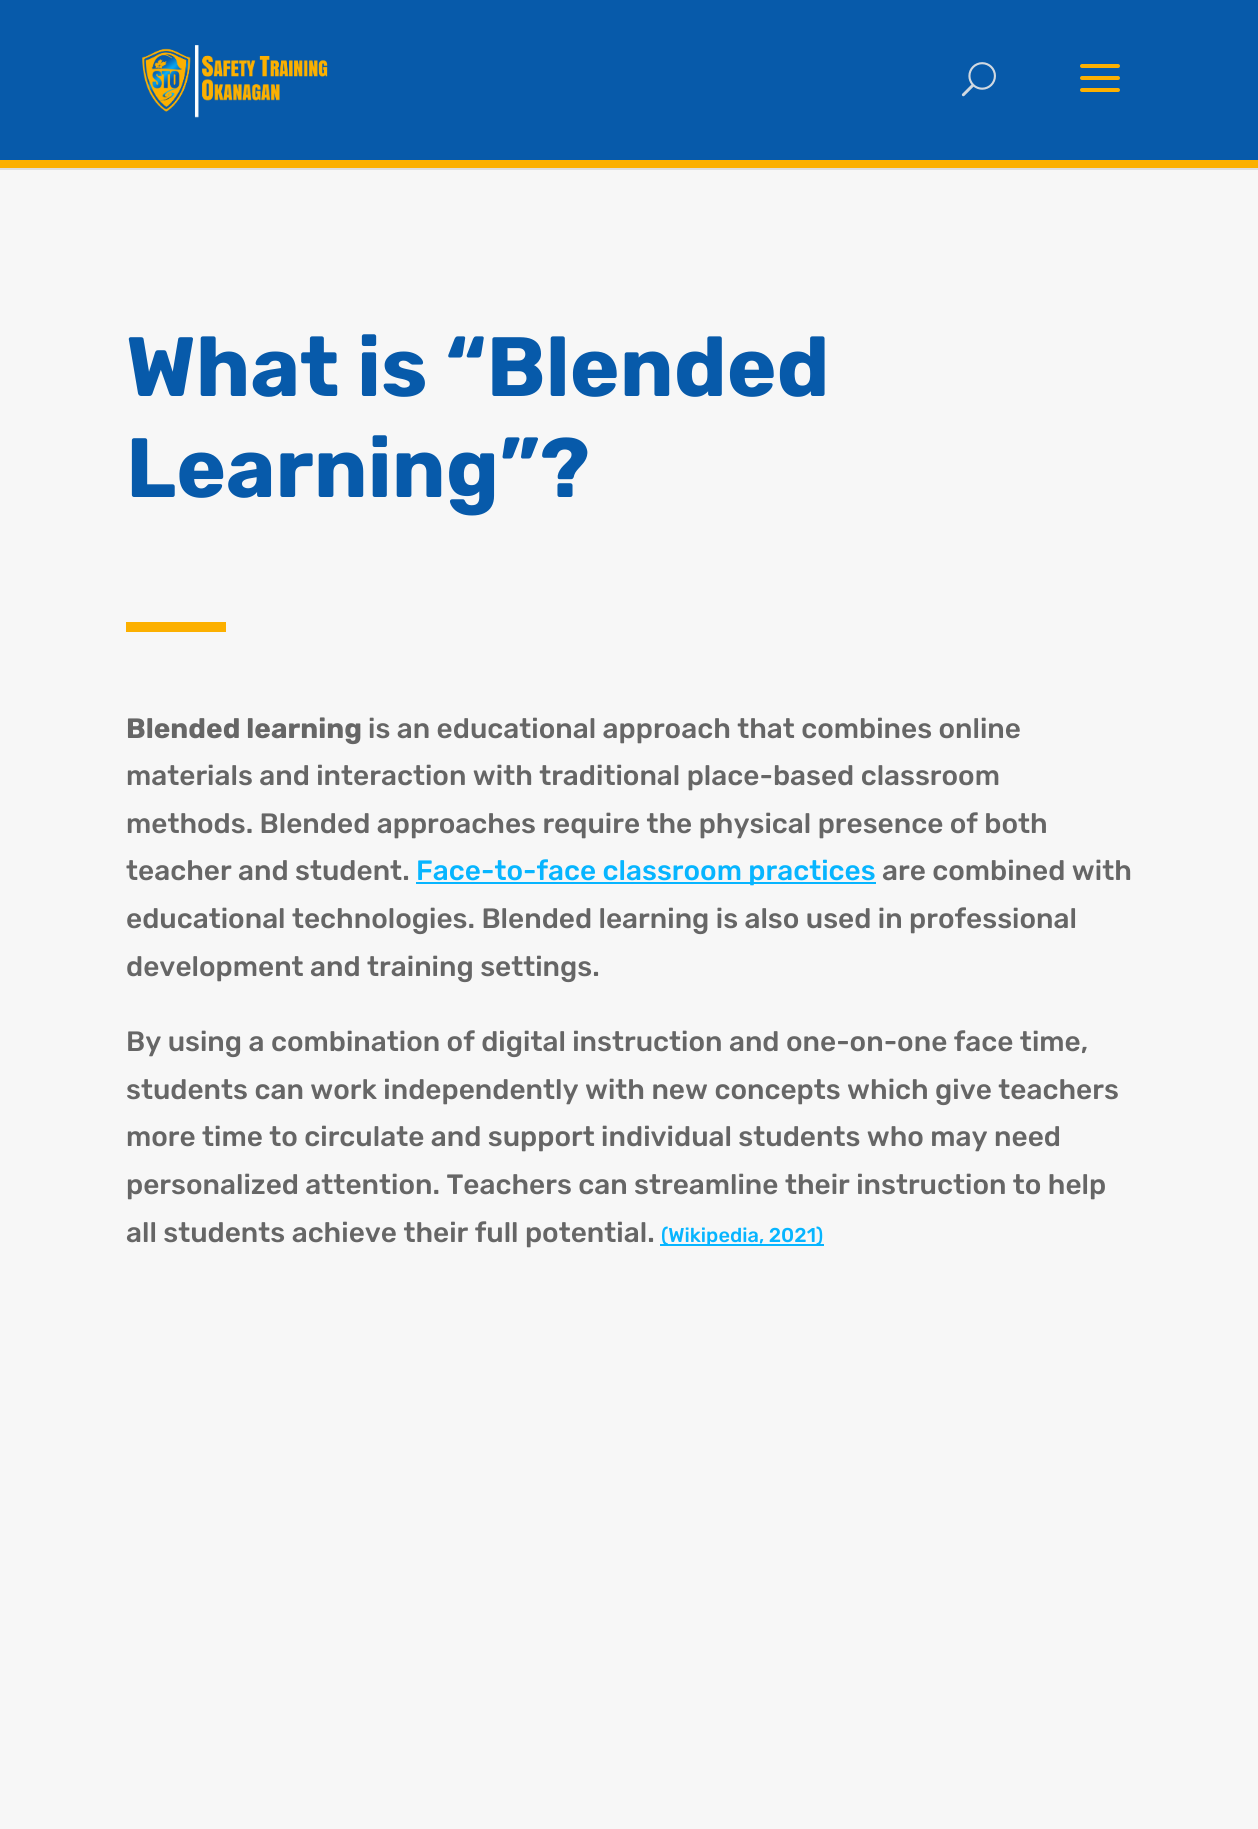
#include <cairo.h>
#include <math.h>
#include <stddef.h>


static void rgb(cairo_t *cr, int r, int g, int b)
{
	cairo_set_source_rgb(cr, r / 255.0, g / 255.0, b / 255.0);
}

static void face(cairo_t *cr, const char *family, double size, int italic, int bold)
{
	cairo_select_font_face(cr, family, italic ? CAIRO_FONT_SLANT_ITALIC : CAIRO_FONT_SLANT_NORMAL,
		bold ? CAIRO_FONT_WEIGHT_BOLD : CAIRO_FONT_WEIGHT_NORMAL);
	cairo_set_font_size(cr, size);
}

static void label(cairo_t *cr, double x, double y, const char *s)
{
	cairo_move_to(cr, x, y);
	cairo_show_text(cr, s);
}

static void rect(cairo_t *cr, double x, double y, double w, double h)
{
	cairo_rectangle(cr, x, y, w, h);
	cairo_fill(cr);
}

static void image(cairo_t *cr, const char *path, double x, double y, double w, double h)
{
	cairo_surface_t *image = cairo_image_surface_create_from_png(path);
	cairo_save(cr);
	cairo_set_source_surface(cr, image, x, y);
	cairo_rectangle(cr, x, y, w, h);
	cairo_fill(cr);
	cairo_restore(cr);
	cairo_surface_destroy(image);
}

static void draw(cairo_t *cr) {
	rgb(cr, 247, 247, 247);
	cairo_paint(cr);
	rgb(cr, 222, 222, 222);
	rect(cr, 0, 168, 1258, 2);
	rgb(cr, 7, 90, 170);
	rect(cr, 0, 0, 1258, 160);
	rgb(cr, 252, 176, 0);
	rect(cr, 0, 160, 1258, 8);
	image(cr, "image0.png", 142, 45, 186, 73);
	image(cr, "image1.png", 961, 62, 35, 35);
	image(cr, "image2.png", 1080, 64, 40, 28);
	face(cr, "Rubik Light", 84, 0, 0);
	rgb(cr, 7, 90, 170);
	label(cr, 126, 396, "What is “Blended");
	label(cr, 126, 497, "Learning”?");
	rgb(cr, 252, 176, 0);
	rect(cr, 126, 622, 100, 10);
	face(cr, "Rubik Light", 28, 0, 0);
	rgb(cr, 102, 102, 102);
	label(cr, 126, 738, "Blended learning");
	face(cr, "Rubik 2 Light", 28, 0, 0);
	label(cr, 368, 738, "is an educational approach that combines online");
	label(cr, 126, 785, "materials and interaction with traditional place-based classroom");
	label(cr, 126, 833, "methods. Blended approaches require the physical presence of both");
	label(cr, 126, 880, "teacher and student.");
	rgb(cr, 7, 181, 255);
	rect(cr, 416, 882, 460, 2);
	label(cr, 416, 880, "Face-to-face classroom practices");
	rgb(cr, 102, 102, 102);
	label(cr, 882, 880, "are combined with");
	label(cr, 126, 928, "educational technologies. Blended learning is also used in professional");
	label(cr, 126, 976, "development and training settings.");
	label(cr, 126, 1051, "By using a combination of digital instruction and one-on-one face time,");
	label(cr, 126, 1099, "students can work independently with new concepts which give teachers");
	label(cr, 126, 1146, "more time to circulate and support individual students who may need");
	label(cr, 126, 1194, "personalized attention. Teachers can streamline their instruction to help");
	label(cr, 126, 1242, "all students achieve their full potential.");
	rgb(cr, 7, 181, 255);
	rect(cr, 660, 1244, 164, 2);
	face(cr, "Rubik 2 Light", 20, 0, 0);
	label(cr, 661, 1242, "(Wikipedia, 2021)");
}

int main(void) {
	cairo_surface_t *surface = cairo_image_surface_create(CAIRO_FORMAT_RGB24, 1258, 1829);
	cairo_t *cr = cairo_create(surface);
	cairo_font_options_t *options = cairo_font_options_create();
	cairo_font_options_set_hint_metrics(options, CAIRO_HINT_METRICS_OFF);
	cairo_font_options_set_hint_style(options, CAIRO_HINT_STYLE_NONE);
	cairo_set_font_options(cr, options);
	cairo_set_miter_limit(cr, 4);
	draw(cr);
	cairo_surface_write_to_png(surface, "render.png");
	cairo_font_options_destroy(options);
	cairo_destroy(cr);
	cairo_surface_destroy(surface);
	return 0;
}
